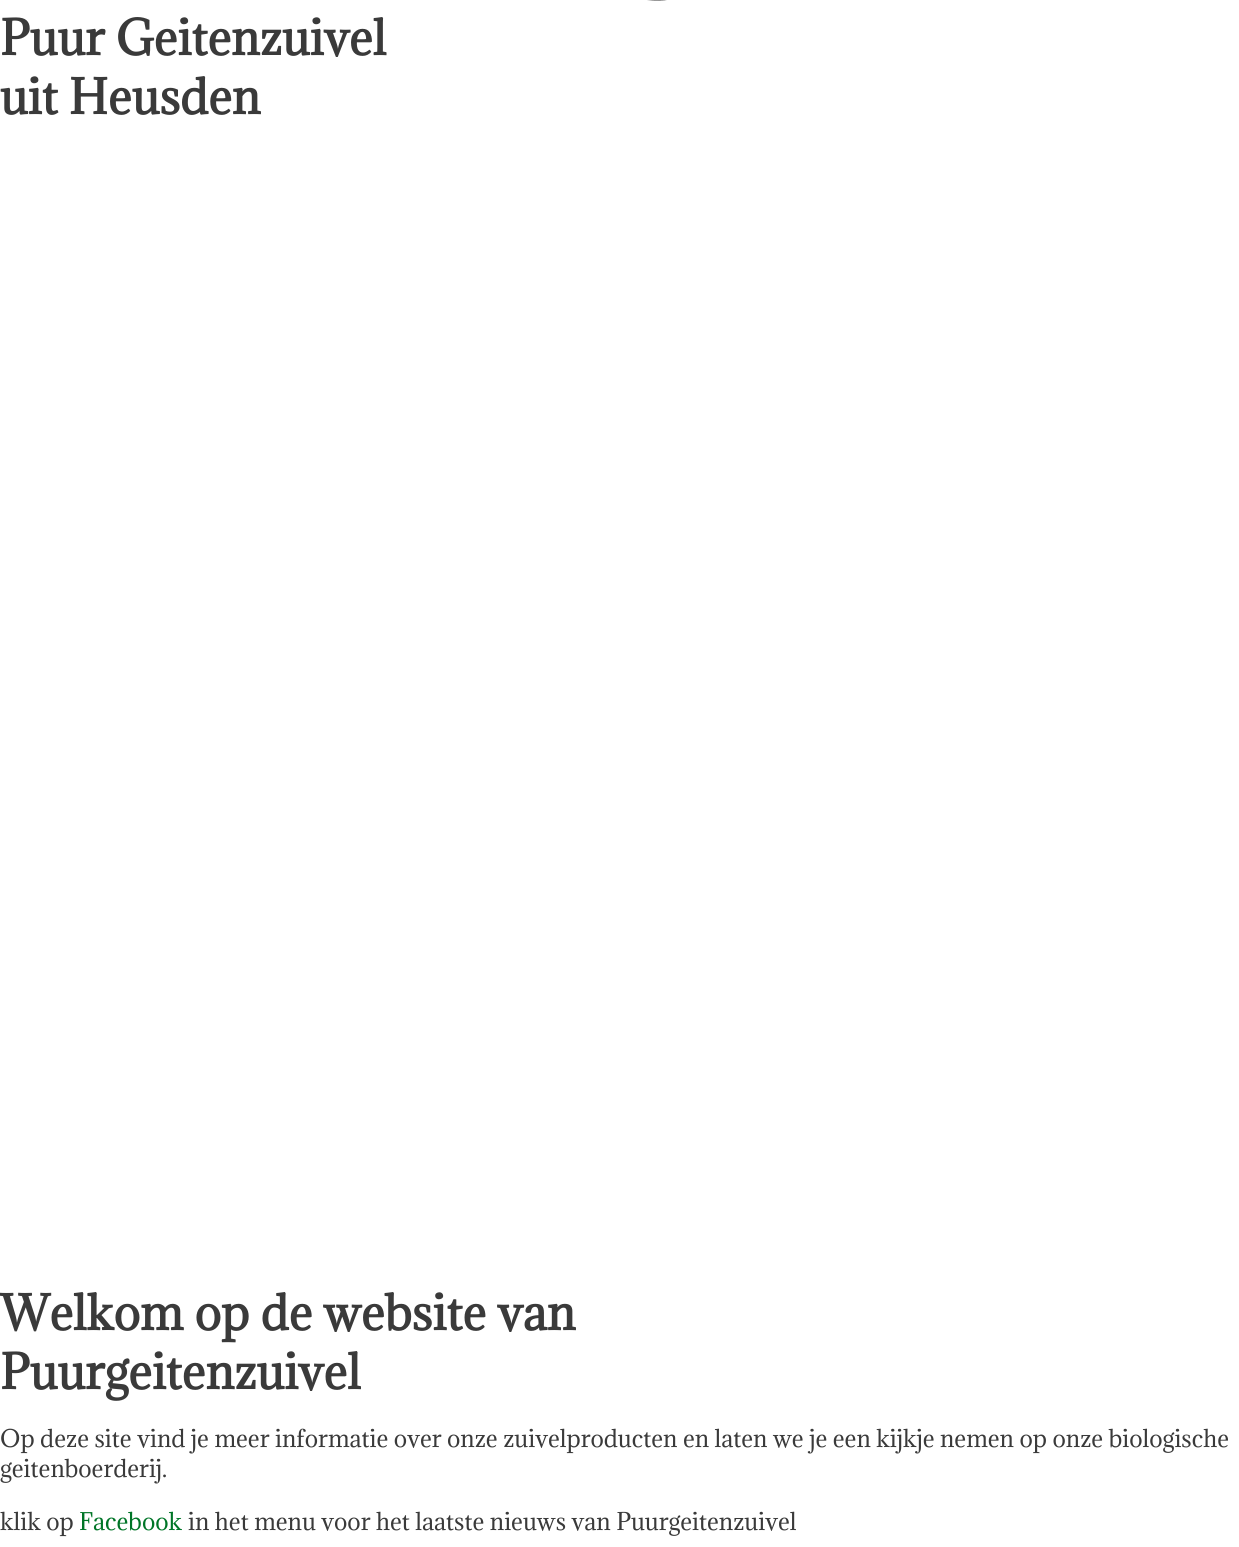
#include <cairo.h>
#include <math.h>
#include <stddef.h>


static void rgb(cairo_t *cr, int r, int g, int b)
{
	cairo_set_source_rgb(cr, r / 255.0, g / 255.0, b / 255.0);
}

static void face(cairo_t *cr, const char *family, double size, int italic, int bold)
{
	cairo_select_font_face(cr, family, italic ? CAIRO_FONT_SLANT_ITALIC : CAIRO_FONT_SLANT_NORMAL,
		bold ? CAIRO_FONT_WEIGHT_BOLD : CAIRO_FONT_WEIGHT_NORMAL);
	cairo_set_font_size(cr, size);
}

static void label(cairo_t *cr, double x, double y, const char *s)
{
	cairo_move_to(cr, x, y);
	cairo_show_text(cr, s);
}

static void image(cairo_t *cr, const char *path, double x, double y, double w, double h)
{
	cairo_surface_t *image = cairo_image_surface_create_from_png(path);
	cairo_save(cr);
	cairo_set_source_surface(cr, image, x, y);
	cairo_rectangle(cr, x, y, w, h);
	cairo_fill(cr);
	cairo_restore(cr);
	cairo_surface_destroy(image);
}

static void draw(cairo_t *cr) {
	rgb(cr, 255, 255, 255);
	cairo_paint(cr);
	image(cr, "image0.png", 647, 0, 20, 1);
	face(cr, "Adamina", 45, 0, 1);
	rgb(cr, 58, 58, 58);
	label(cr, 0, 55, "Puur Geitenzuivel");
	label(cr, 0, 114, "uit Heusden");
	label(cr, 0, 1330, "Welkom op de website van");
	label(cr, 0, 1389, "Puurgeitenzuivel");
	face(cr, "Adamina", 22.5, 0, 0);
	label(cr, 0, 1447, "Op deze site vind je meer informatie over onze zuivelproducten en laten we je een kijkje nemen op onze biologische");
	label(cr, 0, 1477, "geitenboerderij.");
	label(cr, 0, 1530, "klik op");
	rgb(cr, 0, 117, 39);
	label(cr, 79, 1530, "Facebook");
	rgb(cr, 58, 58, 58);
	label(cr, 188, 1530, "in het menu voor het laatste nieuws van Puurgeitenzuivel");
}

int main(void) {
	cairo_surface_t *surface = cairo_image_surface_create(CAIRO_FORMAT_RGB24, 1239, 1547);
	cairo_t *cr = cairo_create(surface);
	cairo_font_options_t *options = cairo_font_options_create();
	cairo_font_options_set_hint_metrics(options, CAIRO_HINT_METRICS_OFF);
	cairo_font_options_set_hint_style(options, CAIRO_HINT_STYLE_NONE);
	cairo_set_font_options(cr, options);
	cairo_set_miter_limit(cr, 4);
	draw(cr);
	cairo_surface_write_to_png(surface, "render.png");
	cairo_font_options_destroy(options);
	cairo_destroy(cr);
	cairo_surface_destroy(surface);
	return 0;
}
